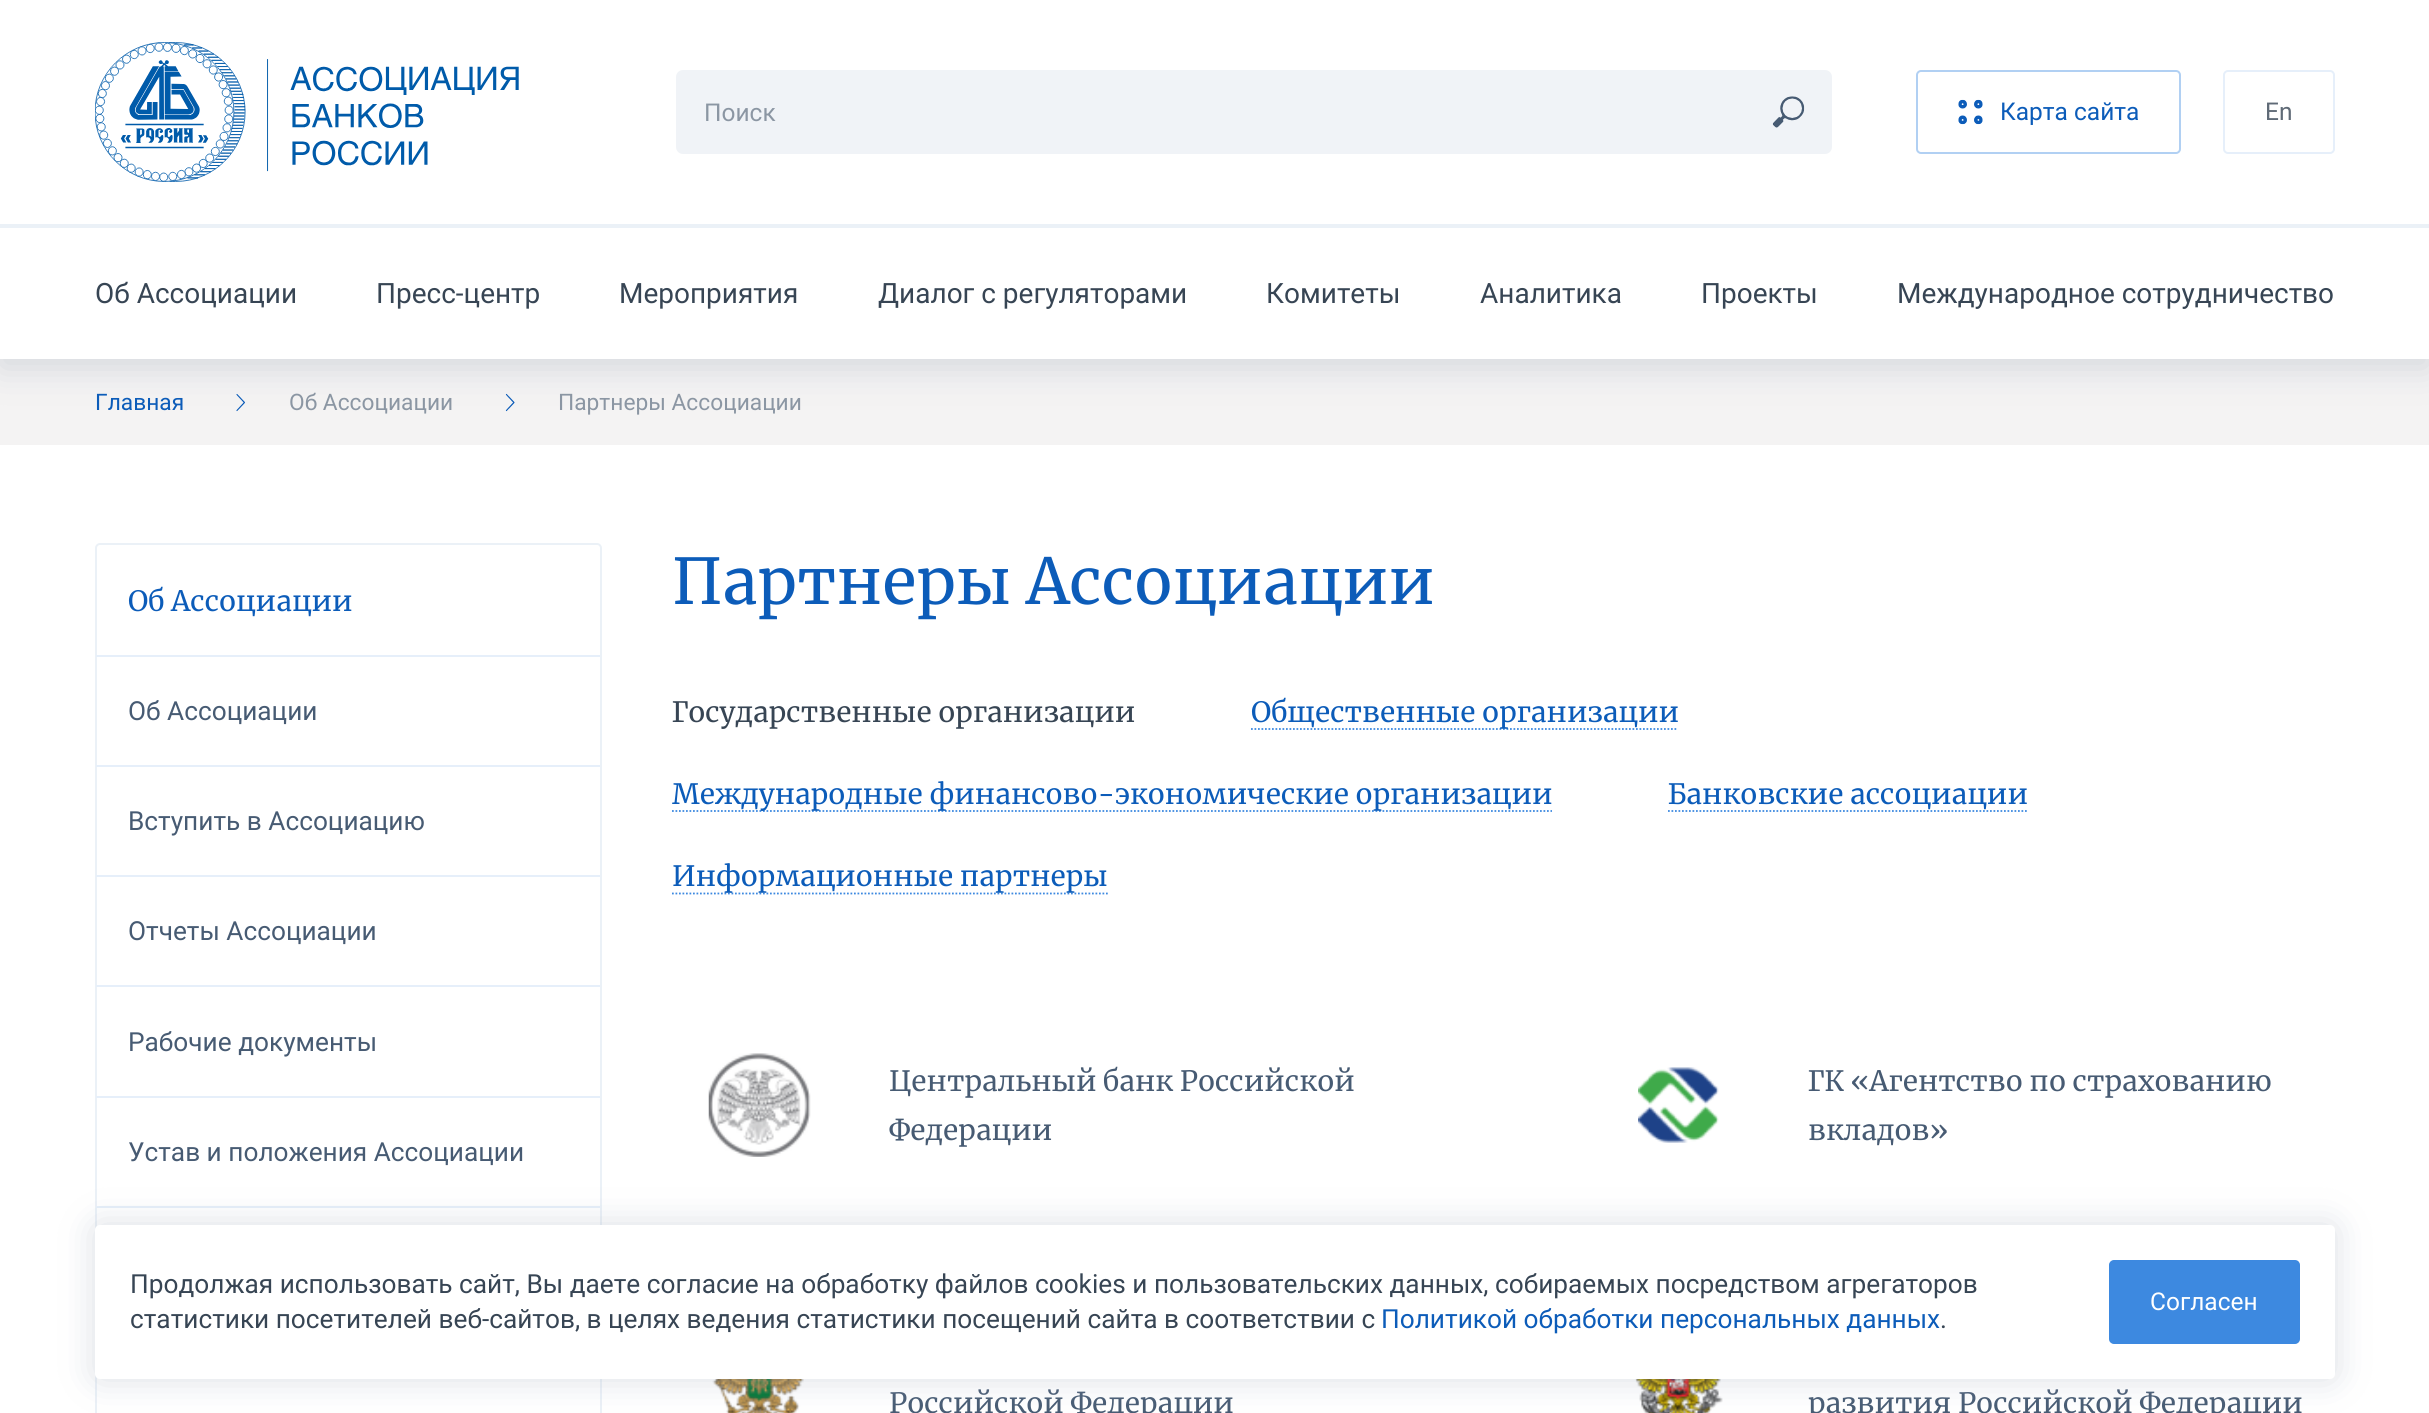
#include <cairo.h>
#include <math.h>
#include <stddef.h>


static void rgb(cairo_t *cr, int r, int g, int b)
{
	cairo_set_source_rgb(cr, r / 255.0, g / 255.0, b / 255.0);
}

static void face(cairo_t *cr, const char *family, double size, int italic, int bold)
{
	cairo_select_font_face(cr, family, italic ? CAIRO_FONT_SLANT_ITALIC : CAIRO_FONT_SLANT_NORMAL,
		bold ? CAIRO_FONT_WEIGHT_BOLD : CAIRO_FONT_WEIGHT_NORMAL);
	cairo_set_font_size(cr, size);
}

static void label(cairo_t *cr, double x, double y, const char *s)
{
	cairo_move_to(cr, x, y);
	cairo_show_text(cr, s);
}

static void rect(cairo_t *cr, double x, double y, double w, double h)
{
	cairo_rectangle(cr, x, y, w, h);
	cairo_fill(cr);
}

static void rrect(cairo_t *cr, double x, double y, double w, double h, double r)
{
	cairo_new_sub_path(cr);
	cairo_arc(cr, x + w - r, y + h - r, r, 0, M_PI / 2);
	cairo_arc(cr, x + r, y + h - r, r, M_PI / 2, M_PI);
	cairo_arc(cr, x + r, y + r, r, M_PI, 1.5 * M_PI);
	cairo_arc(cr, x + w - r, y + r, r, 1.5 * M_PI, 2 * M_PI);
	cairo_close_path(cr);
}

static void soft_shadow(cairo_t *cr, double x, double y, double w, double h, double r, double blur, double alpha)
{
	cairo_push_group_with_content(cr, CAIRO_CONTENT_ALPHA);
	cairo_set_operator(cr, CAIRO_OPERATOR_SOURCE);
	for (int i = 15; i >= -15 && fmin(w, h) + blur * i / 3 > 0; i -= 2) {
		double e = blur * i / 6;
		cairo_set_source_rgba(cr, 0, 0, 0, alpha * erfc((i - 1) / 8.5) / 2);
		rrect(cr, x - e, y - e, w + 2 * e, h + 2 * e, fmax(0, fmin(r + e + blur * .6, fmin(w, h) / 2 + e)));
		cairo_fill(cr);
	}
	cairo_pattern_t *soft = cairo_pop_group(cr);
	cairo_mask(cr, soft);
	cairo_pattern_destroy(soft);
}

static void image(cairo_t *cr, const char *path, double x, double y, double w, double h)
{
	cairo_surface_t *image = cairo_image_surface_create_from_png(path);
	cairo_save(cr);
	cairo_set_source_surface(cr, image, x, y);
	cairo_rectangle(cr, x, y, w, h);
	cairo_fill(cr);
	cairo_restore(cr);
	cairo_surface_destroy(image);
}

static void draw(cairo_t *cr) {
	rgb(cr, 244, 243, 243);
	cairo_paint(cr);
	image(cr, "image3.png", 236, 394, 9, 18);
	image(cr, "image4.png", 505, 393, 10, 19);
	rgb(cr, 164, 175, 189);
	soft_shadow(cr, 0, 9, 2429, 359, 0, 17.5, 0.4);
	rgb(cr, 255, 255, 255);
	rect(cr, 0, 0, 2429, 359);
	image(cr, "image0.png", 95, 42, 424, 140);
	rgb(cr, 240, 243, 247);
	rrect(cr, 676, 70, 1156, 84, 7);
	cairo_fill(cr);
	face(cr, "Roboto", 24.5, 0, 0);
	rgb(cr, 139, 150, 163);
	label(cr, 704, 121, "Поиск");
	image(cr, "image1.png", 1772, 96, 33, 32);
	rrect(cr, 1917, 71, 263, 82, 4);
	rgb(cr, 177, 208, 243);
	cairo_stroke(cr);
	image(cr, "image2.png", 1958, 99, 25, 26);
	rgb(cr, 12, 92, 185);
	label(cr, 2000, 120, "Карта сайта");
	rrect(cr, 2224, 71, 110, 82, 4);
	rgb(cr, 230, 239, 250);
	cairo_stroke(cr);
	rgb(cr, 95, 106, 118);
	label(cr, 2265, 120, "En");
	rgb(cr, 235, 241, 247);
	rect(cr, 0, 224, 2429, 4);
	face(cr, "Roboto", 28, 0, 0);
	rgb(cr, 55, 69, 84);
	label(cr, 95, 303, "Об Ассоциации");
	label(cr, 376, 303, "Пресс-центр");
	label(cr, 619, 303, "Мероприятия");
	label(cr, 878, 303, "Диалог с регуляторами");
	label(cr, 1266, 303, "Комитеты");
	label(cr, 1480, 303, "Аналитика");
	label(cr, 1701, 303, "Проекты");
	label(cr, 1897, 303, "Международное сотрудничество");
	face(cr, "Roboto", 22.75, 0, 0);
	rgb(cr, 12, 92, 185);
	label(cr, 95, 410, "Главная");
	rgb(cr, 139, 150, 163);
	label(cr, 289, 410, "Об Ассоциации");
	label(cr, 558, 410, "Партнеры Ассоциации");
	rgb(cr, 255, 255, 255);
	rect(cr, 0, 445, 2429, 968);
	rrect(cr, 96, 544, 505, 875, 4);
	rgb(cr, 235, 241, 247);
	cairo_stroke(cr);
	face(cr, "Merriweather", 28, 0, 0);
	rgb(cr, 12, 92, 185);
	label(cr, 128, 611, "Об Ассоциации");
	rgb(cr, 230, 239, 250);
	rect(cr, 96, 655, 504, 2);
	face(cr, "Roboto", 26.25, 0, 0);
	rgb(cr, 71, 91, 115);
	label(cr, 128, 720, "Об Ассоциации");
	rgb(cr, 230, 239, 250);
	rect(cr, 96, 765, 504, 2);
	rgb(cr, 71, 91, 115);
	label(cr, 128, 830, "Вступить в Ассоциацию");
	rgb(cr, 230, 239, 250);
	rect(cr, 96, 875, 504, 2);
	rgb(cr, 71, 91, 115);
	label(cr, 128, 940, "Отчеты Ассоциации");
	rgb(cr, 230, 239, 250);
	rect(cr, 96, 985, 504, 2);
	rgb(cr, 71, 91, 115);
	label(cr, 128, 1051, "Рабочие документы");
	rgb(cr, 230, 239, 250);
	rect(cr, 96, 1096, 504, 2);
	rgb(cr, 71, 91, 115);
	label(cr, 128, 1161, "Устав и положения Ассоциации");
	rgb(cr, 230, 239, 250);
	rect(cr, 96, 1206, 504, 2);
	face(cr, "Merriweather", 63, 0, 0);
	rgb(cr, 12, 92, 185);
	label(cr, 672, 604, "Партнеры Ассоциации");
	face(cr, "Merriweather", 28, 0, 0);
	rgb(cr, 55, 69, 84);
	label(cr, 672, 722, "Государственные организации");
	cairo_new_path(cr);
	cairo_move_to(cr, 1251, 729);
	cairo_line_to(cr, 1678, 729);
	rgb(cr, 61, 137, 224);
	cairo_set_line_width(cr, 1.8);
	cairo_set_dash(cr, (double[]){1.75, 1.75}, 2, 0);
	cairo_stroke(cr);
	rgb(cr, 12, 92, 185);
	label(cr, 1251, 722, "Общественные организации");
	cairo_new_path(cr);
	cairo_move_to(cr, 672, 811);
	cairo_line_to(cr, 1552, 811);
	rgb(cr, 61, 137, 224);
	cairo_stroke(cr);
	rgb(cr, 12, 92, 185);
	label(cr, 672, 804, "Международные финансово-экономические организации");
	label(cr, 1668, 804, "Банковские ассоциации");
	cairo_new_path(cr);
	cairo_move_to(cr, 1668, 811);
	cairo_line_to(cr, 2028, 811);
	rgb(cr, 61, 137, 224);
	cairo_stroke(cr);
	cairo_new_path(cr);
	cairo_move_to(cr, 672, 893.5);
	cairo_line_to(cr, 1108, 893.5);
	cairo_stroke(cr);
	rgb(cr, 12, 92, 185);
	label(cr, 672, 886, "Информационные партнеры");
	image(cr, "image5.png", 708, 1053, 103, 104);
	rgb(cr, 71, 91, 115);
	label(cr, 889, 1091, "Центральный банк Российской");
	label(cr, 889, 1140, "Федерации");
	image(cr, "image6.png", 1638, 1067, 81, 76);
	label(cr, 1808, 1091, "ГК «Агентство по страхованию");
	label(cr, 1808, 1140, "вкладов»");
	image(cr, "image7.png", 712, 1379, 92, 34);
	label(cr, 889, 1413, "Российской Федерации");
	image(cr, "image8.png", 1635, 1379, 88, 34);
	label(cr, 1808, 1413, "развития Российской Федерации");
	rgb(cr, 164, 175, 189);
	soft_shadow(cr, 95, 1225, 2240, 154, 5, 17.5, 0.4);
	rgb(cr, 255, 255, 255);
	rrect(cr, 95, 1225, 2240, 154, 5);
	cairo_fill(cr);
	face(cr, "Roboto", 26.25, 0, 0);
	rgb(cr, 55, 69, 84);
	label(cr, 130, 1293, "Продолжая использовать сайт, Вы даете согласие на обработку файлов cookies и пользовательских данных, собираемых посредством агрегаторов");
	label(cr, 130, 1328, "статистики посетителей веб-сайтов, в целях ведения статистики посещений сайта в соответствии с");
	rgb(cr, 12, 92, 185);
	label(cr, 1381, 1328, "Политикой обработки персональных данных");
	rgb(cr, 55, 69, 84);
	label(cr, 1940, 1328, ".");
	rgb(cr, 61, 137, 224);
	rrect(cr, 2110, 1261, 189, 82, 4);
	cairo_fill_preserve(cr);
	cairo_set_line_width(cr, 2);
	cairo_set_dash(cr, NULL, 0, 0);
	cairo_stroke(cr);
	face(cr, "Roboto", 24.5, 0, 0);
	rgb(cr, 255, 255, 255);
	label(cr, 2150, 1310, "Согласен");
}

int main(void) {
	cairo_surface_t *surface = cairo_image_surface_create(CAIRO_FORMAT_RGB24, 2429, 1413);
	cairo_t *cr = cairo_create(surface);
	cairo_font_options_t *options = cairo_font_options_create();
	cairo_font_options_set_hint_metrics(options, CAIRO_HINT_METRICS_OFF);
	cairo_font_options_set_hint_style(options, CAIRO_HINT_STYLE_NONE);
	cairo_set_font_options(cr, options);
	cairo_set_miter_limit(cr, 4);
	draw(cr);
	cairo_surface_write_to_png(surface, "render.png");
	cairo_font_options_destroy(options);
	cairo_destroy(cr);
	cairo_surface_destroy(surface);
	return 0;
}
